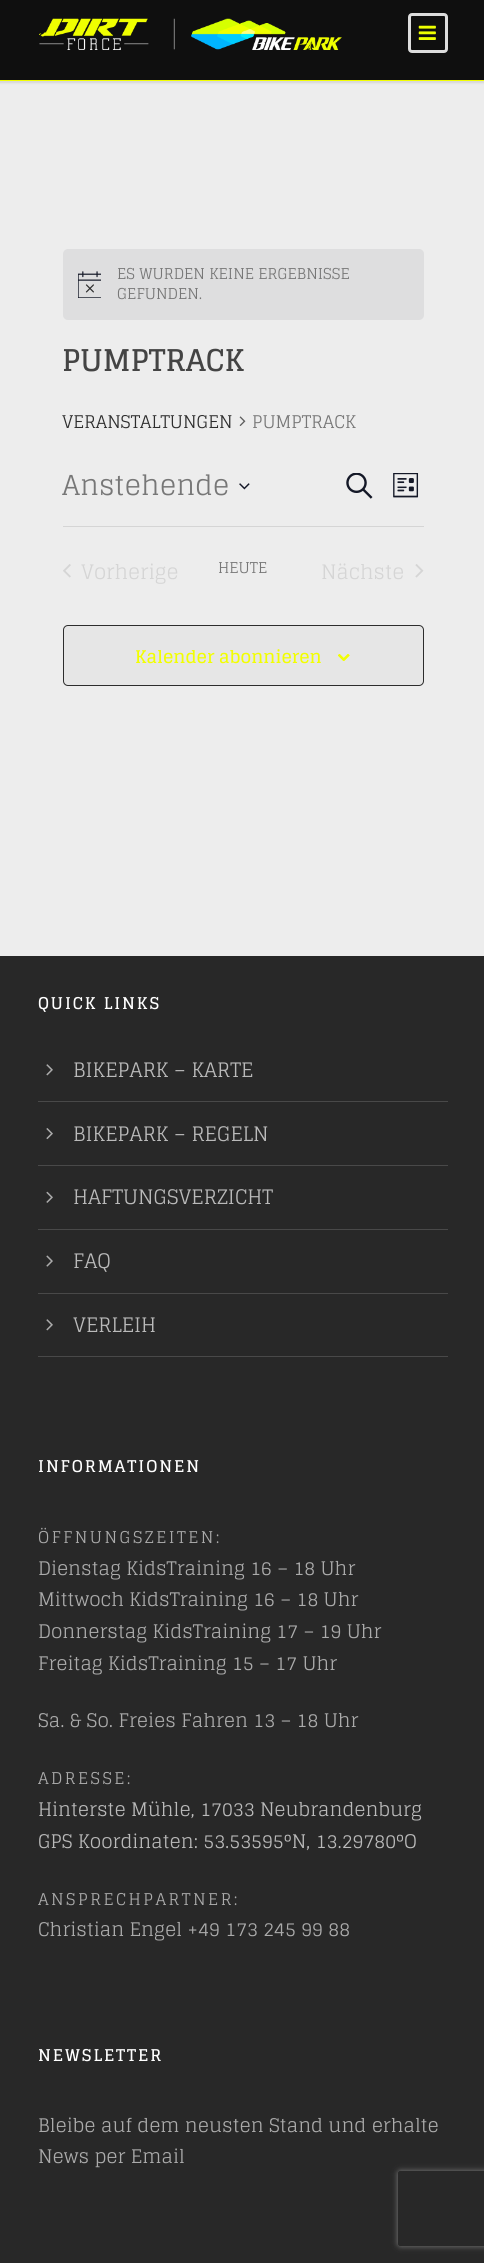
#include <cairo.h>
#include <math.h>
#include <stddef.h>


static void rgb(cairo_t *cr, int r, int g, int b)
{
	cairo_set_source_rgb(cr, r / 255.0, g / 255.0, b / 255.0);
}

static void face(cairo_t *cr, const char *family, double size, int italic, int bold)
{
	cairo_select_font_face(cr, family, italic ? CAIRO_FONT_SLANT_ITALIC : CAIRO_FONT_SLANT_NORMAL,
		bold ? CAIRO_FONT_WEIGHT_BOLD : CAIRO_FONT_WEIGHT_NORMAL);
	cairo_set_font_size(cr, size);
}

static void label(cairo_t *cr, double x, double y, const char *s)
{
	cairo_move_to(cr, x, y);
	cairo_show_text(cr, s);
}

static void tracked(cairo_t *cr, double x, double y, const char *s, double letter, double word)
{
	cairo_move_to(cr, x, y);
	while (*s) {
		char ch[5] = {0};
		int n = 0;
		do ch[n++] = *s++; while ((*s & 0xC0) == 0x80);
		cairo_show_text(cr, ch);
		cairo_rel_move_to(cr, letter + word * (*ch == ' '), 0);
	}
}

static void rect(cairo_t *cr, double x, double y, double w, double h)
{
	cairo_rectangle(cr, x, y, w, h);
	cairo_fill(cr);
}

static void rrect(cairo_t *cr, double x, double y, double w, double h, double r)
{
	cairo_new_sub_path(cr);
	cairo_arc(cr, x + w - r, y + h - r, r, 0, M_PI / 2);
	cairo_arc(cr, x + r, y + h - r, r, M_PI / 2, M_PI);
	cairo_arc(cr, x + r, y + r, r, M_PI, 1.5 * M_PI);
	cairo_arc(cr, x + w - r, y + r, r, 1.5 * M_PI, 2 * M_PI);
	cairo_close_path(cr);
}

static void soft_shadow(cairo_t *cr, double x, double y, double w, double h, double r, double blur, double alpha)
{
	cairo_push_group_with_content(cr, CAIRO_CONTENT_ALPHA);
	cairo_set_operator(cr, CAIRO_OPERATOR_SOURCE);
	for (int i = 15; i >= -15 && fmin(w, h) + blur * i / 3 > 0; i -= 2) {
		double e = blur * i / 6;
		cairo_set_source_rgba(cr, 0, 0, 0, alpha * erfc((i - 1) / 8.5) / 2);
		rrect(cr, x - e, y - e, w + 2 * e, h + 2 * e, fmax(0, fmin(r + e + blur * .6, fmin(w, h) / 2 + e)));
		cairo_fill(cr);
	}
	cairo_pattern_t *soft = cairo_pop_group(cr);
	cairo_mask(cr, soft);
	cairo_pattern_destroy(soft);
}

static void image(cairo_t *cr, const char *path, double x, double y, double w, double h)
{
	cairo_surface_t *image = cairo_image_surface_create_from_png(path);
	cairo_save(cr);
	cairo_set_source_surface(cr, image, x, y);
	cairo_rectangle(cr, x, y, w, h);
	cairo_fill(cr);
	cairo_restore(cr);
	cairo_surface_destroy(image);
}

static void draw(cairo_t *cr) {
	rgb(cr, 237, 237, 237);
	cairo_paint(cr);
	rgb(cr, 0, 0, 0);
	soft_shadow(cr, -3, 1, 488, 82, 0, 1, 0.1);
	rgb(cr, 15, 15, 15);
	rect(cr, 0, 0, 484, 80);
	rgb(cr, 242, 255, 0);
	rect(cr, 0, 80, 484, 1);
	image(cr, "image0.png", 39, 18, 303, 32);
	rrect(cr, 409.5, 14.5, 37, 37, 2.5);
	rgb(cr, 221, 221, 221);
	cairo_set_line_width(cr, 3);
	cairo_stroke(cr);
	image(cr, "image1.png", 418, 25, 18, 15);
	rgb(cr, 222, 222, 223);
	rrect(cr, 63, 249, 361, 71, 5);
	cairo_fill(cr);
	image(cr, "image2.png", 78, 271, 23, 27);
	face(cr, "Glegoo", 15, 0, 0);
	rgb(cr, 119, 119, 119);
	label(cr, 117, 279, "ES WURDEN KEINE ERGEBNISSE");
	label(cr, 117, 299, "GEFUNDEN.");
	face(cr, "Glegoo", 30, 0, 1);
	rgb(cr, 68, 68, 68);
	label(cr, 62, 371, "PUMPTRACK");
	face(cr, "Glegoo", 17.5, 0, 0);
	rgb(cr, 45, 45, 45);
	label(cr, 62, 428, "VERANSTALTUNGEN");
	image(cr, "image3.png", 239, 416, 7, 10);
	rgb(cr, 119, 119, 119);
	label(cr, 252, 428, "PUMPTRACK");
	face(cr, "Glegoo", 27.5, 0, 0);
	label(cr, 62, 495, "Anstehende");
	image(cr, "image4.png", 239, 483, 11, 7);
	image(cr, "image5.png", 346, 473, 27, 26);
	image(cr, "image6.png", 393, 473, 26, 25);
	rgb(cr, 213, 213, 213);
	rect(cr, 63, 526, 361, 1);
	image(cr, "image7.png", 63, 564, 8, 14);
	face(cr, "Glegoo", 20, 0, 0);
	label(cr, 81, 579, "Vorherige");
	face(cr, "Glegoo", 15, 0, 0);
	rgb(cr, 119, 119, 119);
	label(cr, 218, 573, "HEUTE");
	face(cr, "Glegoo", 20, 0, 0);
	rgb(cr, 213, 213, 213);
	label(cr, 321, 579, "Nächste");
	image(cr, "image8.png", 415, 564, 9, 14);
	rgb(cr, 230, 230, 230);
	rrect(cr, 63.5, 625.5, 360, 60, 4.5);
	cairo_fill_preserve(cr);
	rgb(cr, 45, 45, 45);
	cairo_set_line_width(cr, 1);
	cairo_stroke(cr);
	face(cr, "Glegoo", 17.5, 0, 1);
	rgb(cr, 242, 255, 0);
	label(cr, 135, 663, "Kalender abonnieren");
	image(cr, "image9.png", 338, 654, 12, 7);
	rgb(cr, 40, 40, 40);
	rect(cr, 0, 956, 484, 1307);
	face(cr, "Glegoo", 16.25, 0, 1);
	rgb(cr, 255, 255, 255);
	tracked(cr, 38, 1009, "QUICK LINKS", 1.9, 0);
	rgb(cr, 73, 73, 73);
	rect(cr, 38, 1101, 410, 1);
	image(cr, "image10.png", 46, 1064, 7, 12);
	face(cr, "Glegoo", 20, 0, 0);
	rgb(cr, 186, 186, 186);
	label(cr, 73, 1077, "BIKEPARK – KARTE");
	rgb(cr, 73, 73, 73);
	rect(cr, 38, 1165, 410, 1);
	image(cr, "image11.png", 46, 1128, 7, 12);
	rgb(cr, 186, 186, 186);
	label(cr, 73, 1141, "BIKEPARK – REGELN");
	rgb(cr, 73, 73, 73);
	rect(cr, 38, 1229, 410, 1);
	image(cr, "image12.png", 46, 1191, 7, 12);
	rgb(cr, 186, 186, 186);
	label(cr, 73, 1204, "HAFTUNGSVERZICHT");
	rgb(cr, 73, 73, 73);
	rect(cr, 38, 1293, 410, 1);
	image(cr, "image13.png", 46, 1255, 7, 12);
	rgb(cr, 186, 186, 186);
	label(cr, 73, 1268, "FAQ");
	rgb(cr, 73, 73, 73);
	rect(cr, 38, 1356, 410, 1);
	image(cr, "image10.png", 46, 1319, 7, 12);
	rgb(cr, 186, 186, 186);
	label(cr, 73, 1332, "VERLEIH");
	face(cr, "Glegoo", 16.25, 0, 1);
	rgb(cr, 255, 255, 255);
	tracked(cr, 38, 1472, "INFORMATIONEN", 1.9, 0);
	face(cr, "Glegoo", 16.25, 0, 0);
	rgb(cr, 171, 171, 171);
	tracked(cr, 38, 1543, "ÖFFNUNGSZEITEN:", 2.5, 0);
	face(cr, "Glegoo", 18.75, 0, 0);
	label(cr, 38, 1575, "Dienstag KidsTraining 16 – 18 Uhr");
	label(cr, 38, 1606, "Mittwoch KidsTraining 16 – 18 Uhr");
	label(cr, 38, 1638, "Donnerstag KidsTraining 17 – 19 Uhr");
	label(cr, 38, 1670, "Freitag KidsTraining 15 – 17 Uhr");
	label(cr, 38, 1727, "Sa. & So. Freies Fahren 13 – 18 Uhr");
	face(cr, "Glegoo", 16.25, 0, 0);
	tracked(cr, 38, 1784, "ADRESSE:", 2.5, 0);
	face(cr, "Glegoo", 18.75, 0, 0);
	rgb(cr, 186, 186, 186);
	label(cr, 38, 1816, "Hinterste Mühle, 17033 Neubrandenburg");
	label(cr, 38, 1848, "GPS Koordinaten: 53.53595°N, 13.29780°O");
	face(cr, "Glegoo", 16.25, 0, 0);
	rgb(cr, 171, 171, 171);
	tracked(cr, 38, 1905, "ANSPRECHPARTNER:", 2.5, 0);
	face(cr, "Glegoo", 18.75, 0, 0);
	label(cr, 38, 1936, "Christian Engel +49 173 245 99 88");
	face(cr, "Glegoo", 16.25, 0, 1);
	rgb(cr, 255, 255, 255);
	tracked(cr, 38, 2061, "NEWSLETTER", 1.9, 0);
	face(cr, "Glegoo", 18.75, 0, 0);
	rgb(cr, 171, 171, 171);
	label(cr, 38, 2132, "Bleibe auf dem neusten Stand und erhalte");
	label(cr, 38, 2163, "News per Email");
	cairo_save(cr);
	cairo_set_fill_rule(cr, CAIRO_FILL_RULE_EVEN_ODD);
	cairo_new_path(cr);
	cairo_move_to(cr, 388, 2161);
	cairo_line_to(cr, 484, 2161);
	cairo_line_to(cr, 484, 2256);
	cairo_line_to(cr, 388, 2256);
	cairo_close_path(cr);
	cairo_move_to(cr, 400.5, 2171);
	cairo_line_to(cr, 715.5, 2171);
	cairo_curve_to(cr, 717, 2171, 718, 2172, 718, 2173.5);
	cairo_line_to(cr, 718, 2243.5);
	cairo_curve_to(cr, 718, 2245, 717, 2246, 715.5, 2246);
	cairo_line_to(cr, 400.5, 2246);
	cairo_curve_to(cr, 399, 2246, 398, 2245, 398, 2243.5);
	cairo_line_to(cr, 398, 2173.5);
	cairo_curve_to(cr, 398, 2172, 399, 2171, 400.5, 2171);
	cairo_close_path(cr);
	cairo_clip(cr);
	rgb(cr, 128, 128, 128);
	soft_shadow(cr, 398, 2171, 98, 75, 2.5, 3, 1);
	cairo_restore(cr);
}

int main(void) {
	cairo_surface_t *surface = cairo_image_surface_create(CAIRO_FORMAT_RGB24, 484, 2263);
	cairo_t *cr = cairo_create(surface);
	cairo_font_options_t *options = cairo_font_options_create();
	cairo_font_options_set_hint_metrics(options, CAIRO_HINT_METRICS_OFF);
	cairo_font_options_set_hint_style(options, CAIRO_HINT_STYLE_NONE);
	cairo_set_font_options(cr, options);
	cairo_set_miter_limit(cr, 4);
	draw(cr);
	cairo_surface_write_to_png(surface, "render.png");
	cairo_font_options_destroy(options);
	cairo_destroy(cr);
	cairo_surface_destroy(surface);
	return 0;
}
